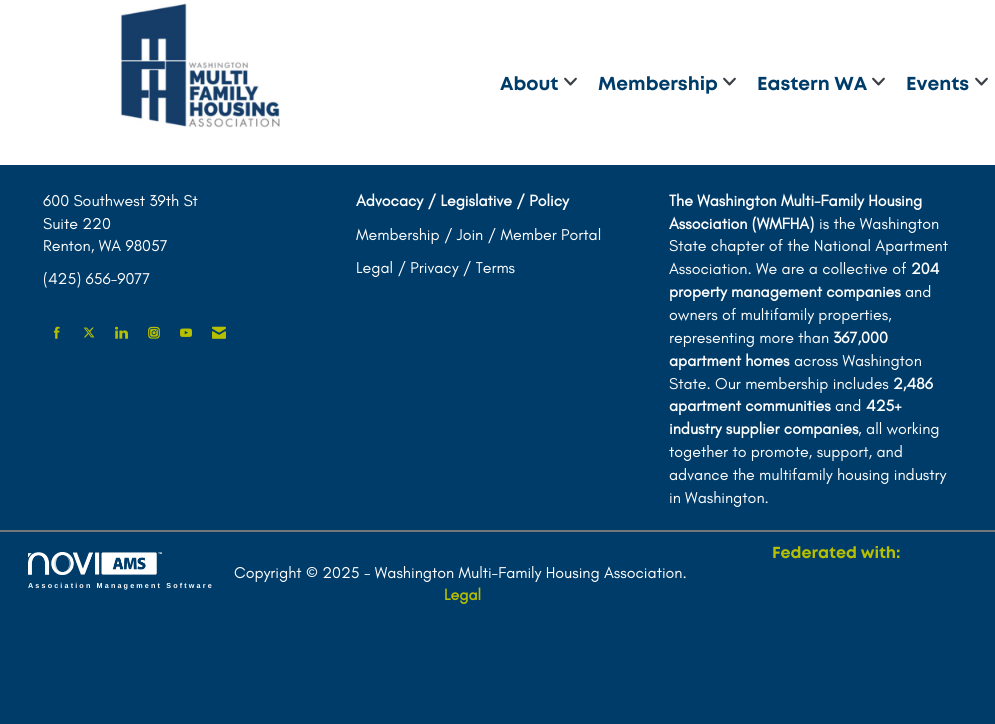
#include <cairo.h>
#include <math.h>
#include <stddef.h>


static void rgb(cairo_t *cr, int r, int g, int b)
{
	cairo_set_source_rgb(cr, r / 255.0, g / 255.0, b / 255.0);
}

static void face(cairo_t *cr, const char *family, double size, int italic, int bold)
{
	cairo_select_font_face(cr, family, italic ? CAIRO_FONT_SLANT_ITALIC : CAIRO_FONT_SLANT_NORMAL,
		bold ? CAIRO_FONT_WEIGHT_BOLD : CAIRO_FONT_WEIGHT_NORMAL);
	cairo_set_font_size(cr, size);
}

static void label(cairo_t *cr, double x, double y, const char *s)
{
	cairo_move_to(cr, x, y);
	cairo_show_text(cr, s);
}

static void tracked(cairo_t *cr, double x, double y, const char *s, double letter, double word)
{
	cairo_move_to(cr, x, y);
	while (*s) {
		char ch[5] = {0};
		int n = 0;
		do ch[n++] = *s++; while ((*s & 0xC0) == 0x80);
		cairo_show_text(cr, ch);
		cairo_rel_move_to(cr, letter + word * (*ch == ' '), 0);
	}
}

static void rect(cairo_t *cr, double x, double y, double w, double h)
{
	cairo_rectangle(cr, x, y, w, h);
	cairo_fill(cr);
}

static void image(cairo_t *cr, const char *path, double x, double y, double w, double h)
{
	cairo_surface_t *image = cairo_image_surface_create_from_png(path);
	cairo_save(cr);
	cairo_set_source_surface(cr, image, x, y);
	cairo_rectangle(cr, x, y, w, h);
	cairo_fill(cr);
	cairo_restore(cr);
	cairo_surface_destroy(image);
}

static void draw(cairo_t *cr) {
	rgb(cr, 0, 60, 105);
	cairo_paint(cr);
	rgb(cr, 255, 255, 255);
	rect(cr, 0, 0, 995, 165);
	image(cr, "image0.png", 120, 3, 160, 125);
	face(cr, "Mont", 18.75, 0, 1);
	rgb(cr, 0, 60, 105);
	label(cr, 500, 90, "About");
	image(cr, "image1.png", 564, 77, 13, 9);
	label(cr, 598, 90, "Membership");
	image(cr, "image1.png", 723, 77, 13, 9);
	label(cr, 757, 90, "Eastern WA");
	image(cr, "image1.png", 872, 77, 13, 9);
	label(cr, 906, 90, "Events");
	image(cr, "image1.png", 975, 77, 13, 9);
	face(cr, "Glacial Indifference", 16, 0, 0);
	rgb(cr, 255, 255, 255);
	label(cr, 43, 206, "600 Southwest 39th St");
	label(cr, 43, 229, "Suite 220");
	label(cr, 43, 251, "Renton, WA 98057");
	label(cr, 43, 284, "(425) 656-9077");
	image(cr, "image2.png", 53, 326, 7, 13);
	image(cr, "image3.png", 83, 327, 12, 11);
	image(cr, "image4.png", 115, 326, 14, 13);
	image(cr, "image5.png", 148, 326, 12, 13);
	image(cr, "image6.png", 180, 328, 12, 9);
	image(cr, "image7.png", 212, 326, 14, 13);
	face(cr, "Glacial Indifference", 16, 0, 1);
	label(cr, 356, 206, "Advocacy / Legislative / Policy");
	face(cr, "Glacial Indifference", 16, 0, 0);
	label(cr, 356, 240, "Membership / Join / Member Portal");
	label(cr, 356, 273, "Legal / Privacy / Terms");
	face(cr, "Glacial Indifference", 16, 0, 1);
	label(cr, 669, 206, "The Washington Multi-Family Housing");
	label(cr, 669, 229, "Association (WMFHA)");
	face(cr, "Glacial Indifference", 16, 0, 0);
	label(cr, 819, 229, "is the Washington");
	label(cr, 669, 251, "State chapter of the National Apartment");
	label(cr, 669, 274, "Association. We are a collective of");
	face(cr, "Glacial Indifference", 16, 0, 1);
	label(cr, 911, 274, "204");
	label(cr, 669, 297, "property management companies");
	face(cr, "Glacial Indifference", 16, 0, 0);
	label(cr, 905, 297, "and");
	label(cr, 669, 320, "owners of multifamily properties,");
	label(cr, 669, 343, "representing more than");
	face(cr, "Glacial Indifference", 16, 0, 1);
	label(cr, 833, 343, "367,000");
	label(cr, 669, 366, "apartment homes");
	face(cr, "Glacial Indifference", 16, 0, 0);
	label(cr, 794, 366, "across Washington");
	label(cr, 669, 389, "State. Our membership includes");
	face(cr, "Glacial Indifference", 16, 0, 1);
	label(cr, 893, 389, "2,486");
	label(cr, 669, 411, "apartment communities");
	face(cr, "Glacial Indifference", 16, 0, 0);
	label(cr, 835, 411, "and");
	face(cr, "Glacial Indifference", 16, 0, 1);
	label(cr, 866, 411, "425+");
	label(cr, 669, 434, "industry supplier companies");
	face(cr, "Glacial Indifference", 16, 0, 0);
	label(cr, 858, 434, ", all working");
	label(cr, 669, 457, "together to promote, support, and");
	label(cr, 669, 480, "advance the multifamily housing industry");
	label(cr, 669, 503, "in Washington.");
	rgb(cr, 116, 118, 120);
	rect(cr, 0, 530, 995, 2);
	face(cr, "Mont", 16, 0, 1);
	rgb(cr, 182, 191, 0);
	label(cr, 772, 558, "Federated with:");
	image(cr, "image8.png", 28, 552, 134, 23);
	face(cr, "Liberation Sans", 7.2, 0, 1);
	rgb(cr, 255, 255, 255);
	tracked(cr, 28, 588, "Association Management Software", 2.15, 0);
	face(cr, "Glacial Indifference", 16, 0, 0);
	label(cr, 234, 578, "Copyright © 2025 - Washington Multi-Family Housing Association.");
	face(cr, "Glacial Indifference", 16, 0, 1);
	rgb(cr, 182, 191, 0);
	label(cr, 444, 600, "Legal");
}

int main(void) {
	cairo_surface_t *surface = cairo_image_surface_create(CAIRO_FORMAT_RGB24, 995, 724);
	cairo_t *cr = cairo_create(surface);
	cairo_font_options_t *options = cairo_font_options_create();
	cairo_font_options_set_hint_metrics(options, CAIRO_HINT_METRICS_OFF);
	cairo_font_options_set_hint_style(options, CAIRO_HINT_STYLE_NONE);
	cairo_set_font_options(cr, options);
	cairo_set_miter_limit(cr, 4);
	draw(cr);
	cairo_surface_write_to_png(surface, "render.png");
	cairo_font_options_destroy(options);
	cairo_destroy(cr);
	cairo_surface_destroy(surface);
	return 0;
}
